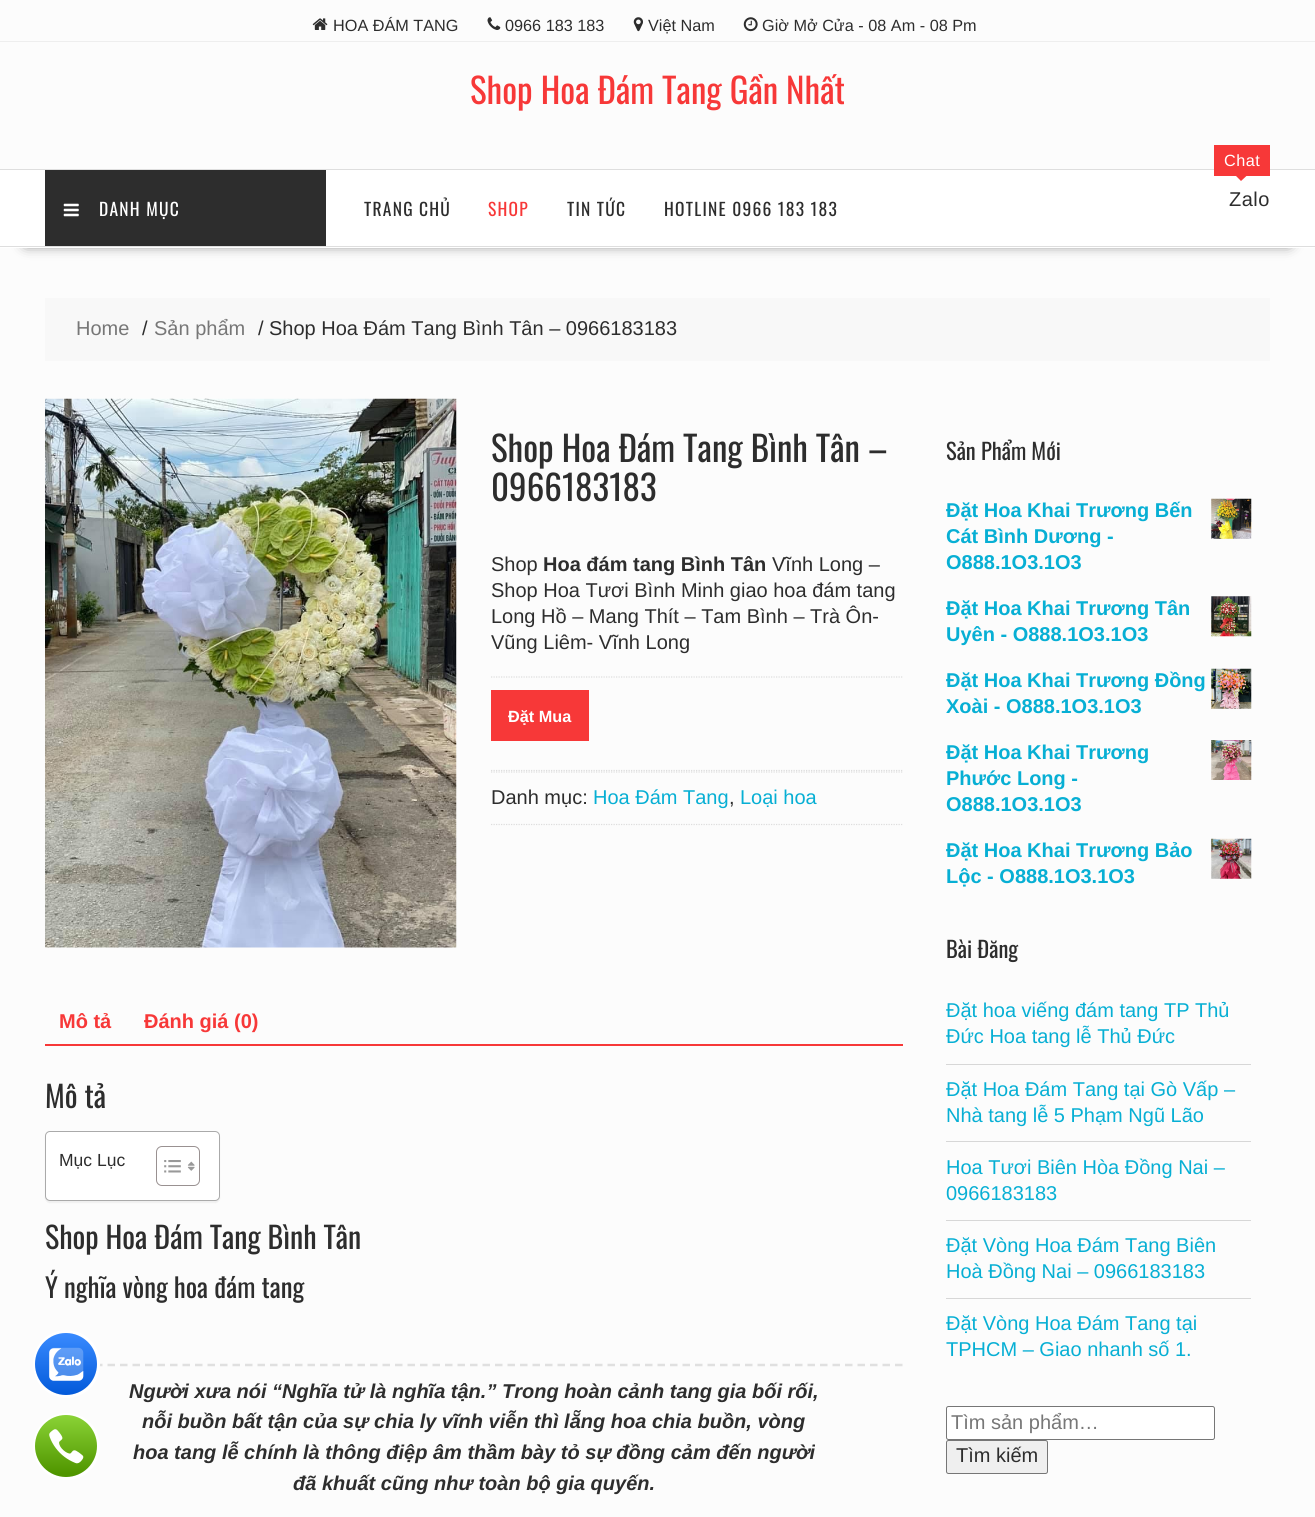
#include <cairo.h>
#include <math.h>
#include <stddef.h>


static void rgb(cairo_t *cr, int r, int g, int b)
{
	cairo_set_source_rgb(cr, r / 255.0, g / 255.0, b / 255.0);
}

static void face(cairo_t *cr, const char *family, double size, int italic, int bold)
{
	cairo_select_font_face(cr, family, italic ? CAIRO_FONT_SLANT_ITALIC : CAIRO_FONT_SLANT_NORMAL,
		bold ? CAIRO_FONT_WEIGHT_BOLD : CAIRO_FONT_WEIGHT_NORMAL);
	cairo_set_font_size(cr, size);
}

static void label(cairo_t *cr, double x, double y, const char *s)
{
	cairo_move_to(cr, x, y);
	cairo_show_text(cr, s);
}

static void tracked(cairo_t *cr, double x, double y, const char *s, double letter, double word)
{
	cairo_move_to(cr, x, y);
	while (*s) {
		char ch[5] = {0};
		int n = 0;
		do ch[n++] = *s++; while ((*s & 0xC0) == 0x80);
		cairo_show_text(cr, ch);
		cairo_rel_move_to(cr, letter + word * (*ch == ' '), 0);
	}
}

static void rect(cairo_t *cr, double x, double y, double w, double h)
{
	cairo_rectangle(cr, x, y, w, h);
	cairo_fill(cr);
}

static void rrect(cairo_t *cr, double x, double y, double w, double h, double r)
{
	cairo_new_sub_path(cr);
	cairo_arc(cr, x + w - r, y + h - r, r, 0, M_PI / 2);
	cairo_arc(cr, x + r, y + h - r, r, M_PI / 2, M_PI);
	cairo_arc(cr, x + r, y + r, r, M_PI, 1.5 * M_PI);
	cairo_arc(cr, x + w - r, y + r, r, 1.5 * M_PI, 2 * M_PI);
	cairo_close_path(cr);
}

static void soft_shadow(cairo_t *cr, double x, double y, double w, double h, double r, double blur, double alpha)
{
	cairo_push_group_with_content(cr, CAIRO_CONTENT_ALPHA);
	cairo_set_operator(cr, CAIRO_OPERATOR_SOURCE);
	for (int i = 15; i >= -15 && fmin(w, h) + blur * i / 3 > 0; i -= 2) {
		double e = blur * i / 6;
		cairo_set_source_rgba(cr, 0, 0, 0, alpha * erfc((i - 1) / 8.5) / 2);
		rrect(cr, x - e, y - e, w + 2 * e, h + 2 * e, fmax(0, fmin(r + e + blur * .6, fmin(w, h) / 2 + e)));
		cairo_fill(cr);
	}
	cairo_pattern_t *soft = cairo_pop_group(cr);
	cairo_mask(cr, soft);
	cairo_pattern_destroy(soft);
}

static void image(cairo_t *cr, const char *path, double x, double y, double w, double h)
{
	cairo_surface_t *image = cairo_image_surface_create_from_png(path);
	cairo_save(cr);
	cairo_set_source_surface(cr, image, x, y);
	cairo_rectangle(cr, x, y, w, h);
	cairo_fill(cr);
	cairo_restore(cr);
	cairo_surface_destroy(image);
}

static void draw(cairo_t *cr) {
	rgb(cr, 252, 252, 252);
	cairo_paint(cr);
	rgb(cr, 238, 238, 238);
	rect(cr, 0, 41, 1315, 1);
	image(cr, "image0.png", 312, 18, 16, 12);
	face(cr, "Liberation Sans", 16.25, 0, 0);
	rgb(cr, 45, 45, 45);
	label(cr, 333, 31, "HOA ĐÁM TANG");
	image(cr, "image1.png", 487, 17, 14, 13);
	label(cr, 505, 31, "0966 183 183");
	image(cr, "image2.png", 633, 17, 10, 15);
	label(cr, 648, 31, "Việt Nam");
	image(cr, "image3.png", 743, 17, 15, 15);
	label(cr, 762, 31, "Giờ Mở Cửa - 08 Am - 08 Pm");
	face(cr, "Oswald", 35, 0, 0);
	rgb(cr, 247, 56, 56);
	label(cr, 470, 104, "Shop Hoa Đám Tang Gần Nhất");
	rgb(cr, 0, 0, 0);
	soft_shadow(cr, 26, 216, 1263, 27, 0, 7, 0.75);
	rgb(cr, 255, 255, 255);
	rect(cr, 0, 170, 1315, 78);
	rgb(cr, 222, 222, 222);
	rect(cr, 0, 169, 1315, 1);
	rect(cr, 0, 246, 1315, 1);
	rgb(cr, 45, 45, 45);
	rect(cr, 45, 170, 281, 76);
	image(cr, "image4.png", 63, 203, 16, 14);
	face(cr, "Oswald", 17.5, 0, 0);
	rgb(cr, 255, 255, 255);
	tracked(cr, 99, 216, "DANH MỤC", 1.25, 0);
	rgb(cr, 45, 45, 45);
	tracked(cr, 364, 216, "TRANG CHỦ", 1.25, 0);
	rgb(cr, 247, 56, 56);
	tracked(cr, 488, 216, "SHOP", 1.25, 0);
	rgb(cr, 45, 45, 45);
	tracked(cr, 567, 216, "TIN TỨC", 1.25, 0);
	tracked(cr, 664, 216, "HOTLINE 0966 183 183", 1.25, 0);
	rgb(cr, 247, 56, 56);
	rect(cr, 1214, 145, 56, 31);
	face(cr, "Liberation Sans", 16.25, 0, 0);
	rgb(cr, 255, 255, 255);
	tracked(cr, 1224, 166, "Chat", 0.5, 0);
	rgb(cr, 247, 56, 56);
	cairo_new_path(cr);
	cairo_move_to(cr, 1235, 175);
	cairo_line_to(cr, 1247.5, 175);
	cairo_line_to(cr, 1241, 181);
	cairo_close_path(cr);
	cairo_fill(cr);
	face(cr, "Liberation Sans", 20, 0, 0);
	rgb(cr, 45, 45, 45);
	tracked(cr, 1229, 206, "Zalo", 0.5, 0);
	rgb(cr, 248, 248, 248);
	rect(cr, 45, 298, 1225, 63);
	rgb(cr, 119, 119, 119);
	label(cr, 76, 335, "Home");
	rgb(cr, 45, 45, 45);
	label(cr, 142, 335, "/");
	rgb(cr, 119, 119, 119);
	label(cr, 154, 335, "Sản phẩm");
	rgb(cr, 45, 45, 45);
	label(cr, 258, 335, "/");
	label(cr, 269, 335, "Shop Hoa Đám Tang Bình Tân – 0966183183");
	image(cr, "image5.png", 45, 398, 412, 550);
	face(cr, "Oswald", 35, 0, 0);
	label(cr, 491, 462, "Shop Hoa Đám Tang Bình Tân –");
	label(cr, 491, 501, "0966183183");
	face(cr, "Liberation Sans", 20, 0, 0);
	label(cr, 491, 571, "Shop");
	face(cr, "Liberation Sans", 20, 0, 1);
	label(cr, 543, 571, "Hoa đám tang Bình Tân");
	face(cr, "Liberation Sans", 20, 0, 0);
	label(cr, 772, 571, "Vĩnh Long –");
	label(cr, 491, 597, "Shop Hoa Tươi Bình Minh giao hoa đám tang");
	label(cr, 491, 623, "Long Hồ – Mang Thít – Tam Bình – Trà Ôn-");
	label(cr, 491, 649, "Vũng Liêm- Vĩnh Long");
	cairo_new_path(cr);
	cairo_move_to(cr, 491, 677);
	cairo_line_to(cr, 902.5, 677);
	rgb(cr, 221, 221, 221);
	cairo_set_line_width(cr, 1.2);
	cairo_set_dash(cr, (double[]){1.25, 1.25}, 2, 0);
	cairo_stroke(cr);
	cairo_new_path(cr);
	cairo_move_to(cr, 491, 770.5);
	cairo_line_to(cr, 902.5, 770.5);
	cairo_stroke(cr);
	rgb(cr, 247, 56, 56);
	rect(cr, 491, 690, 98, 51);
	face(cr, "Liberation Sans", 16.25, 0, 1);
	rgb(cr, 255, 255, 255);
	label(cr, 508, 722, "Đặt Mua");
	cairo_new_path(cr);
	cairo_move_to(cr, 491, 772);
	cairo_line_to(cr, 902.5, 772);
	rgb(cr, 221, 221, 221);
	cairo_stroke(cr);
	cairo_new_path(cr);
	cairo_move_to(cr, 491, 824.5);
	cairo_line_to(cr, 902.5, 824.5);
	cairo_stroke(cr);
	face(cr, "Liberation Sans", 20, 0, 0);
	rgb(cr, 45, 45, 45);
	label(cr, 491, 804, "Danh mục:");
	rgb(cr, 7, 175, 212);
	label(cr, 593, 804, "Hoa Đám Tang");
	rgb(cr, 45, 45, 45);
	label(cr, 729, 804, ",");
	rgb(cr, 7, 175, 212);
	label(cr, 740, 804, "Loại hoa");
	face(cr, "Liberation Sans", 20, 0, 1);
	rgb(cr, 247, 56, 56);
	label(cr, 59, 1028, "Mô tả");
	label(cr, 144, 1028, "Đánh giá (0)");
	rect(cr, 45, 1044, 858, 2);
	face(cr, "Oswald", 30, 0, 0);
	rgb(cr, 45, 45, 45);
	label(cr, 45, 1108, "Mô tả");
	rgb(cr, 0, 0, 0);
	soft_shadow(cr, 45, 1133, 175, 70, 5, 0.5, 0.05);
	rgb(cr, 255, 255, 255);
	rrect(cr, 45.5, 1131.5, 174, 69, 4.5);
	cairo_fill_preserve(cr);
	rgb(cr, 170, 170, 170);
	cairo_set_line_width(cr, 1);
	cairo_set_dash(cr, NULL, 0, 0);
	cairo_stroke(cr);
	face(cr, "Liberation Sans", 17.5, 0, 0);
	rgb(cr, 45, 45, 45);
	label(cr, 59, 1166, "Mục Lục");
	rrect(cr, 156.5, 1146.5, 43, 39, 5.5);
	rgb(cr, 153, 145, 145);
	cairo_stroke(cr);
	image(cr, "image6.png", 164, 1160, 17, 13);
	image(cr, "image7.png", 187, 1161, 8, 10);
	face(cr, "Oswald", 30, 0, 0);
	rgb(cr, 45, 45, 45);
	label(cr, 45, 1249, "Shop Hoa Đám Tang Bình Tân");
	face(cr, "Oswald", 26.75, 0, 0);
	label(cr, 45, 1298, "Ý nghĩa vòng hoa đám tang");
	cairo_new_path(cr);
	cairo_move_to(cr, 45, 1365);
	cairo_line_to(cr, 902.5, 1365);
	rgb(cr, 224, 224, 224);
	cairo_set_line_width(cr, 2.5);
	cairo_set_dash(cr, (double[]){7.5, 5}, 2, 0);
	cairo_stroke(cr);
	face(cr, "Liberation Sans", 20, 1, 1);
	rgb(cr, 45, 45, 45);
	label(cr, 129, 1398, "Người xưa nói “Nghĩa tử là nghĩa tận.” Trong hoàn cảnh tang gia bối rối,");
	label(cr, 142, 1428, "nỗi buồn bất tận của sự chia ly vĩnh viễn thì lẵng hoa chia buồn, vòng");
	label(cr, 133, 1459, "hoa tang lễ chính là thông điệp âm thầm bày tỏ sự đồng cảm đến người");
	label(cr, 293, 1490, "đã khuất cũng như toàn bộ gia quyến.");
	face(cr, "Oswald", 22.5, 0, 0);
	label(cr, 946, 460, "Sản Phẩm Mới");
	face(cr, "Liberation Sans", 20, 0, 1);
	rgb(cr, 7, 175, 212);
	label(cr, 946, 517, "Đặt Hoa Khai Trương Bến");
	image(cr, "image8.png", 1211, 498, 41, 41);
	label(cr, 946, 543, "Cát Bình Dương -");
	label(cr, 946, 569, "O888.1O3.1O3");
	label(cr, 946, 615, "Đặt Hoa Khai Trương Tân");
	image(cr, "image9.png", 1211, 596, 41, 41);
	label(cr, 946, 641, "Uyên - O888.1O3.1O3");
	label(cr, 946, 687, "Đặt Hoa Khai Trương Đồng");
	image(cr, "image10.png", 1211, 668, 41, 41);
	label(cr, 946, 713, "Xoài - O888.1O3.1O3");
	label(cr, 946, 759, "Đặt Hoa Khai Trương");
	image(cr, "image11.png", 1211, 740, 41, 40);
	label(cr, 946, 785, "Phước Long -");
	label(cr, 946, 811, "O888.1O3.1O3");
	label(cr, 946, 857, "Đặt Hoa Khai Trương Bảo");
	image(cr, "image12.png", 1211, 838, 41, 41);
	label(cr, 946, 883, "Lộc - O888.1O3.1O3");
	face(cr, "Oswald", 22.5, 0, 0);
	rgb(cr, 45, 45, 45);
	label(cr, 946, 958, "Bài Đăng");
	rgb(cr, 215, 215, 215);
	rect(cr, 946, 1064, 305, 1);
	face(cr, "Liberation Sans", 20, 0, 0);
	rgb(cr, 7, 175, 212);
	label(cr, 946, 1017, "Đặt hoa viếng đám tang TP Thủ");
	label(cr, 946, 1043, "Đức Hoa tang lễ Thủ Đức");
	rgb(cr, 215, 215, 215);
	rect(cr, 946, 1141, 305, 1);
	rgb(cr, 7, 175, 212);
	label(cr, 946, 1096, "Đặt Hoa Đám Tang tại Gò Vấp –");
	label(cr, 946, 1122, "Nhà tang lễ 5 Phạm Ngũ Lão");
	rgb(cr, 215, 215, 215);
	rect(cr, 946, 1220, 305, 1);
	rgb(cr, 7, 175, 212);
	label(cr, 946, 1174, "Hoa Tươi Biên Hòa Đồng Nai –");
	label(cr, 946, 1200, "0966183183");
	rgb(cr, 215, 215, 215);
	rect(cr, 946, 1298, 305, 1);
	rgb(cr, 7, 175, 212);
	label(cr, 946, 1252, "Đặt Vòng Hoa Đám Tang Biên");
	label(cr, 946, 1278, "Hoà Đồng Nai – 0966183183");
	label(cr, 946, 1330, "Đặt Vòng Hoa Đám Tang tại");
	label(cr, 946, 1356, "TPHCM – Giao nhanh số 1.");
	rgb(cr, 255, 255, 255);
	rrect(cr, 946.5, 1406.5, 268, 33, 2);
	cairo_fill_preserve(cr);
	rgb(cr, 118, 118, 118);
	cairo_set_line_width(cr, 1);
	cairo_set_dash(cr, NULL, 0, 0);
	cairo_stroke(cr);
	rgb(cr, 119, 119, 119);
	label(cr, 951, 1429, "Tìm sản phẩm…");
	rgb(cr, 239, 239, 239);
	rrect(cr, 946.5, 1440.5, 101, 33, 2);
	cairo_fill_preserve(cr);
	rgb(cr, 118, 118, 118);
	cairo_stroke(cr);
	rgb(cr, 45, 45, 45);
	label(cr, 956, 1462, "Tìm kiếm");
	rrect(cr, 34.5, 1331.5, 64, 65, 32);
	rgb(cr, 255, 255, 255);
	cairo_set_line_width(cr, 3);
	cairo_stroke(cr);
	image(cr, "image13.png", 35, 1333, 62, 62);
	cairo_arc(cr, 66.5, 1446.5, 32, 0, 2 * M_PI);
	cairo_stroke(cr);
	image(cr, "image14.png", 35, 1415, 62, 62);
}

int main(void) {
	cairo_surface_t *surface = cairo_image_surface_create(CAIRO_FORMAT_RGB24, 1315, 1517);
	cairo_t *cr = cairo_create(surface);
	cairo_font_options_t *options = cairo_font_options_create();
	cairo_font_options_set_hint_metrics(options, CAIRO_HINT_METRICS_OFF);
	cairo_font_options_set_hint_style(options, CAIRO_HINT_STYLE_NONE);
	cairo_set_font_options(cr, options);
	cairo_set_miter_limit(cr, 4);
	draw(cr);
	cairo_surface_write_to_png(surface, "render.png");
	cairo_font_options_destroy(options);
	cairo_destroy(cr);
	cairo_surface_destroy(surface);
	return 0;
}
